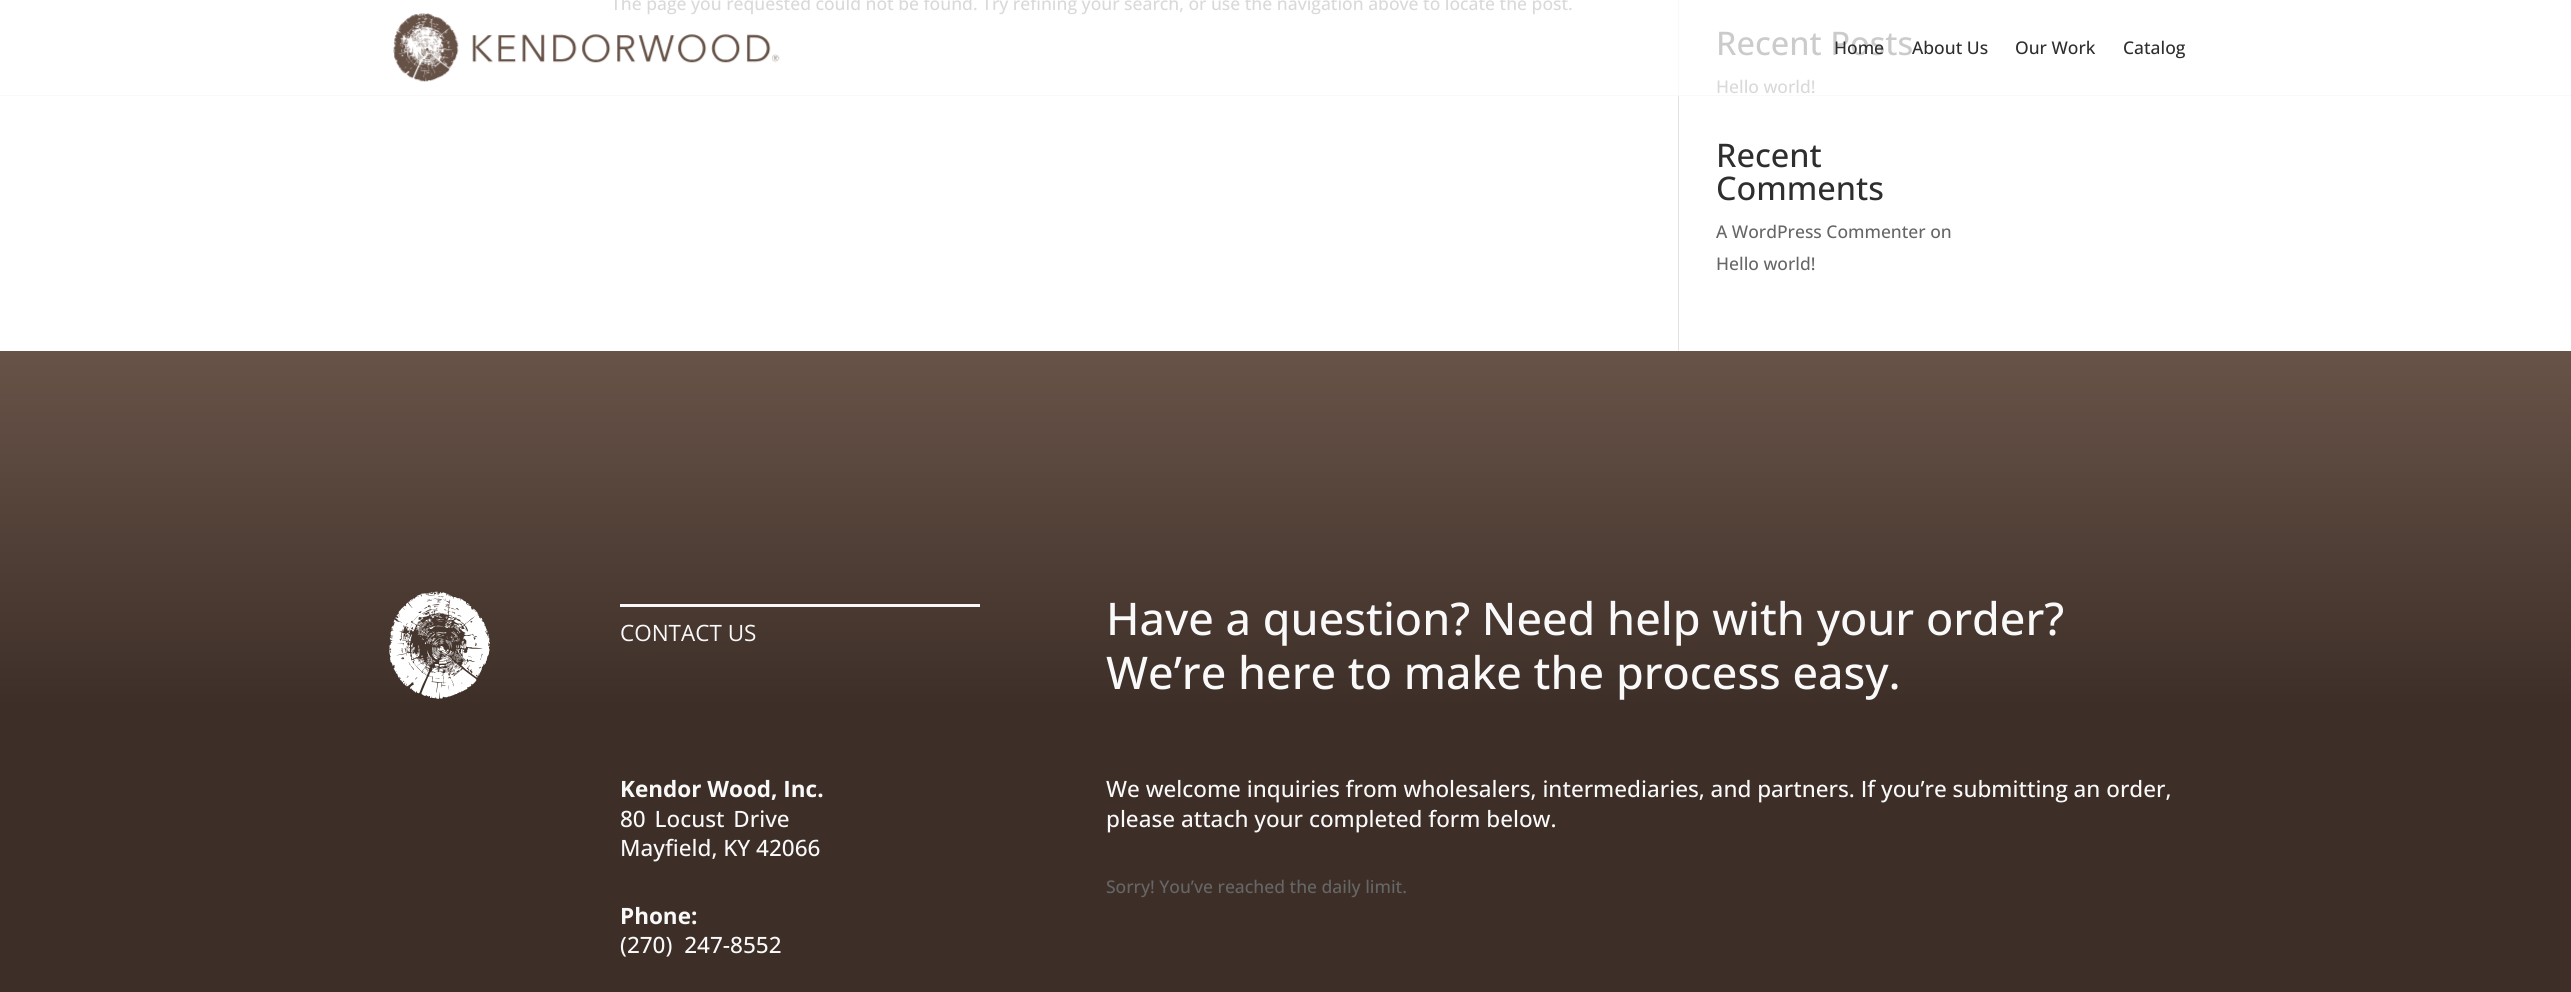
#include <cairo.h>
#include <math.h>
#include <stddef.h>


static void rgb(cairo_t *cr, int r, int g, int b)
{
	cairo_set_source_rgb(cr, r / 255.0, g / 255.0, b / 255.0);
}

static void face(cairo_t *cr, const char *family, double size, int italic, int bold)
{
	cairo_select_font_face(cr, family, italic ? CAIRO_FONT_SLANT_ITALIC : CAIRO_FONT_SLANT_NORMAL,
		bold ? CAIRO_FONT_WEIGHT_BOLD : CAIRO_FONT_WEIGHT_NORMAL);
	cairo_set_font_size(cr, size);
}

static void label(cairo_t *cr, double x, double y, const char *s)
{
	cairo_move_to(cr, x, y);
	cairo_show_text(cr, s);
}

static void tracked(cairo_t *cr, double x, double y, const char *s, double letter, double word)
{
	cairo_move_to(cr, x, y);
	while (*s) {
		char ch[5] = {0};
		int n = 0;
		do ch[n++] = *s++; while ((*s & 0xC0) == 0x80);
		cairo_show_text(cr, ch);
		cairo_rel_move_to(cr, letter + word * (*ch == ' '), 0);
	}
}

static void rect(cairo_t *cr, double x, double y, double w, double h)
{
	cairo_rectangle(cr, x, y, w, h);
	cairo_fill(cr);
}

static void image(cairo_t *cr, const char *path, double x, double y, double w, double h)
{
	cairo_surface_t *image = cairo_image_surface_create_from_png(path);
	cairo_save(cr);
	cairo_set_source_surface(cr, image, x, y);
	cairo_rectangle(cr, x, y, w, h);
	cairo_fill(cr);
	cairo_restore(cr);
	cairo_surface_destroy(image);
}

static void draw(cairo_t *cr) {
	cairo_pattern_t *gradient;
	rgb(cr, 255, 255, 255);
	cairo_paint(cr);
	face(cr, "Open Sans Medium", 17.5, 0, 0);
	rgb(cr, 217, 217, 217);
	label(cr, 611, 10, "The page you requested could not be found. Try refining your search, or use the navigation above to locate the post.");
	face(cr, "Open Sans Medium", 32.5, 0, 0);
	rgb(cr, 203, 203, 203);
	label(cr, 1716, 55, "Recent Posts");
	face(cr, "Open Sans Medium", 17.5, 0, 0);
	rgb(cr, 217, 217, 217);
	label(cr, 1716, 93, "Hello world!");
	face(cr, "Open Sans Medium", 32.5, 0, 0);
	rgb(cr, 46, 46, 46);
	label(cr, 1716, 167, "Recent");
	label(cr, 1716, 200, "Comments");
	face(cr, "Open Sans Medium", 17.5, 0, 0);
	rgb(cr, 102, 102, 102);
	label(cr, 1716, 238, "A WordPress Commenter on");
	label(cr, 1716, 270, "Hello world!");
	rgb(cr, 226, 226, 226);
	rect(cr, 1678, 96, 1, 255);
	rgb(cr, 248, 248, 248);
	rect(cr, 1678, 0, 1, 96);
	gradient = cairo_pattern_create_linear(1286, 351, 1286, 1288);
	cairo_pattern_add_color_stop_rgba(gradient, 0, 0.408, 0.325, 0.282, 1);
	cairo_pattern_add_color_stop_rgba(gradient, 0.38, 0.239, 0.184, 0.157, 1);
	cairo_pattern_add_color_stop_rgba(gradient, 1, 0.239, 0.184, 0.157, 1);
	cairo_set_source(cr, gradient);
	cairo_pattern_destroy(gradient);
	rect(cr, 0, 351, 2571, 641);
	image(cr, "image0.png", 389, 591, 101, 108);
	rgb(cr, 249, 249, 249);
	rect(cr, 620, 604, 360, 3);
	face(cr, "Open Sans", 22.5, 0, 0);
	label(cr, 620, 641, "CONTACT US");
	face(cr, "Open Sans Medium", 45, 0, 0);
	label(cr, 1106, 635, "Have a question? Need help with your order?");
	label(cr, 1106, 689, "We’re here to make the process easy.");
	face(cr, "Open Sans", 22.5, 0, 1);
	label(cr, 620, 797, "Kendor Wood, Inc.");
	face(cr, "Open Sans Medium", 22.5, 0, 0);
	tracked(cr, 620, 827, "80 Locust Drive", 0, 3);
	label(cr, 620, 856, "Mayfield, KY 42066");
	face(cr, "Open Sans", 22.5, 0, 1);
	label(cr, 620, 924, "Phone:");
	face(cr, "Open Sans Medium", 22.5, 0, 0);
	tracked(cr, 620, 953, "(270) 247-8552", 0, 6);
	label(cr, 1106, 797, "We welcome inquiries from wholesalers, intermediaries, and partners. If you’re submitting an order,");
	label(cr, 1106, 827, "please attach your completed form below.");
	face(cr, "Open Sans Medium", 17.5, 0, 0);
	rgb(cr, 102, 102, 102);
	label(cr, 1106, 893, "Sorry! You’ve reached the daily limit.");
	rgb(cr, 249, 249, 249);
	rect(cr, 0, 95, 2571, 1);
	image(cr, "image1.png", 393, 13, 387, 69);
	rgb(cr, 46, 46, 46);
	label(cr, 1834, 54, "Home");
	label(cr, 1912, 54, "About Us");
	label(cr, 2015, 54, "Our Work");
	label(cr, 2123, 54, "Catalog");
}

int main(void) {
	cairo_surface_t *surface = cairo_image_surface_create(CAIRO_FORMAT_RGB24, 2571, 992);
	cairo_t *cr = cairo_create(surface);
	cairo_font_options_t *options = cairo_font_options_create();
	cairo_font_options_set_hint_metrics(options, CAIRO_HINT_METRICS_OFF);
	cairo_font_options_set_hint_style(options, CAIRO_HINT_STYLE_NONE);
	cairo_set_font_options(cr, options);
	cairo_set_miter_limit(cr, 4);
	draw(cr);
	cairo_surface_write_to_png(surface, "render.png");
	cairo_font_options_destroy(options);
	cairo_destroy(cr);
	cairo_surface_destroy(surface);
	return 0;
}
